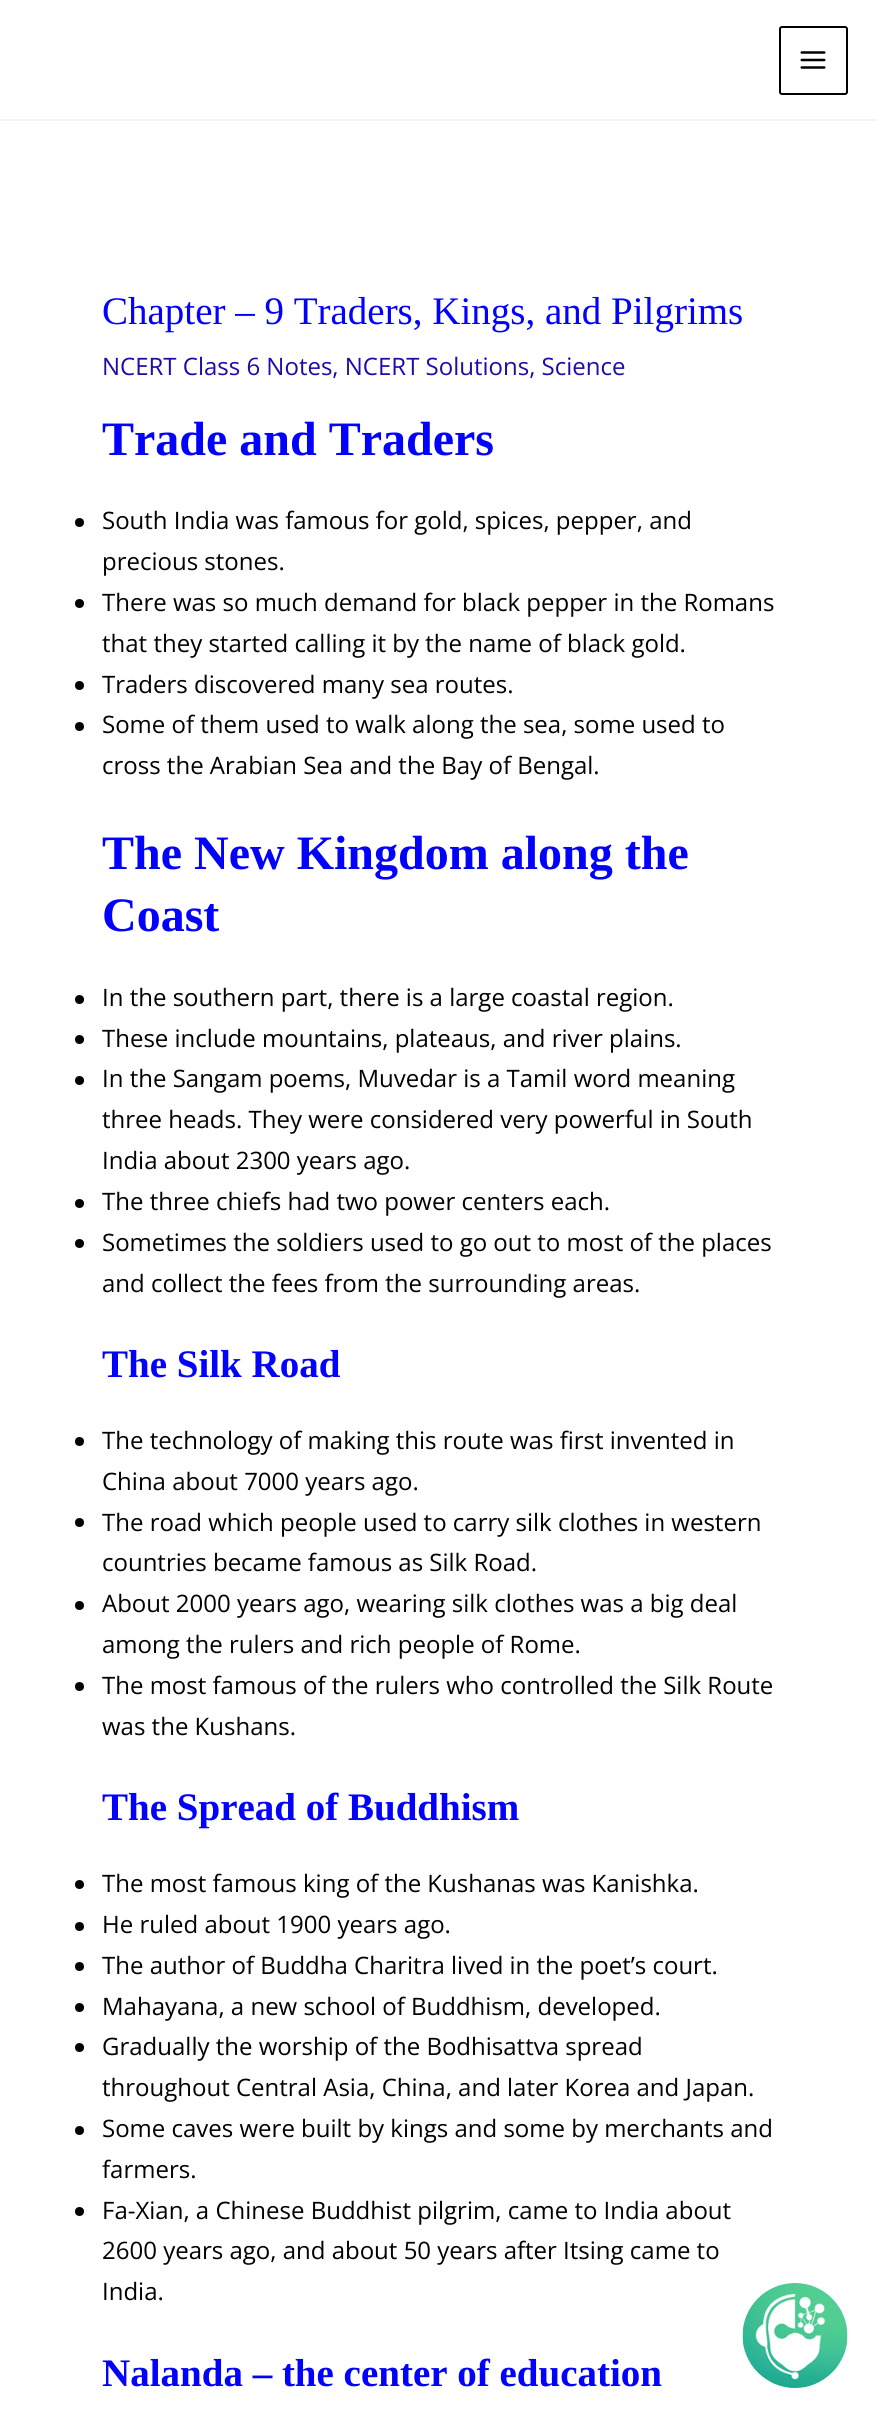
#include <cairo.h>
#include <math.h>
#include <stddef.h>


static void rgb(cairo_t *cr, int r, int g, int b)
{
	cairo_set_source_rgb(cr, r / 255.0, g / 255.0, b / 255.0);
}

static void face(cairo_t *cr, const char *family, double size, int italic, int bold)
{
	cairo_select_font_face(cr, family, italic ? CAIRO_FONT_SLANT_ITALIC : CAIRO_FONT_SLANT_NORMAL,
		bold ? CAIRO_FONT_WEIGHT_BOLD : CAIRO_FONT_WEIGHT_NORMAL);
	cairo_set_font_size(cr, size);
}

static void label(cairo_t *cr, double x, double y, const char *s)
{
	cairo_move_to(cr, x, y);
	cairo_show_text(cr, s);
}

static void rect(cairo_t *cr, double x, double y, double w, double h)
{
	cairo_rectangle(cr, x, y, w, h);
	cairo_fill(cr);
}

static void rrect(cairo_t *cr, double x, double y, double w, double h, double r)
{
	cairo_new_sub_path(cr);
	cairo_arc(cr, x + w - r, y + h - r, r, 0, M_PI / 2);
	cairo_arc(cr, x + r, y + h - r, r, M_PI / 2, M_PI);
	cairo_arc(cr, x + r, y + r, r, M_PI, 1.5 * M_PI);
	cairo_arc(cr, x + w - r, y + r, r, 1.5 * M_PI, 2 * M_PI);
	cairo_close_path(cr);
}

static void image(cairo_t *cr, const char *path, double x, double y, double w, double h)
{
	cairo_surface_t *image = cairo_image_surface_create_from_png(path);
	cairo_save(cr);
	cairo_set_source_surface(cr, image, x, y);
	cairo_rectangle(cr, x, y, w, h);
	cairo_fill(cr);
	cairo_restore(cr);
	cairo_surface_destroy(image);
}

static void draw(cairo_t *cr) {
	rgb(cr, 255, 255, 255);
	cairo_paint(cr);
	rgb(cr, 242, 245, 247);
	rect(cr, 0, 119, 877, 2);
	rrect(cr, 780, 27, 67, 67, 2);
	rgb(cr, 0, 0, 0);
	cairo_stroke(cr);
	image(cr, "image0.png", 800, 51, 26, 18);
	face(cr, "Liberation Serif", 39, 0, 0);
	rgb(cr, 2, 0, 255);
	label(cr, 102, 324, "Chapter – 9 Traders, Kings, and Pilgrims");
	face(cr, "Open Sans", 24, 0, 0);
	rgb(cr, 26, 13, 171);
	label(cr, 102, 375, "NCERT Class 6 Notes, NCERT Solutions, Science");
	face(cr, "Liberation Serif", 48, 0, 1);
	rgb(cr, 2, 0, 255);
	label(cr, 102, 455, "Trade and Traders");
	rgb(cr, 0, 0, 0);
	cairo_new_path(cr);
	cairo_arc(cr, 79.5, 522.5, 4.5, 0, 2 * M_PI);
	cairo_fill(cr);
	face(cr, "Open Sans", 24, 0, 0);
	label(cr, 102, 529, "South India was famous for gold, spices, pepper, and");
	label(cr, 102, 570, "precious stones.");
	cairo_new_path(cr);
	cairo_arc(cr, 79.5, 603.5, 4.5, 0, 2 * M_PI);
	cairo_fill(cr);
	label(cr, 102, 611, "There was so much demand for black pepper in the Romans");
	label(cr, 102, 652, "that they started calling it by the name of black gold.");
	cairo_new_path(cr);
	cairo_arc(cr, 79.5, 685.5, 4.5, 0, 2 * M_PI);
	cairo_fill(cr);
	label(cr, 102, 693, "Traders discovered many sea routes.");
	cairo_new_path(cr);
	cairo_arc(cr, 79.5, 726.5, 4.5, 0, 2 * M_PI);
	cairo_fill(cr);
	label(cr, 102, 733, "Some of them used to walk along the sea, some used to");
	label(cr, 102, 774, "cross the Arabian Sea and the Bay of Bengal.");
	face(cr, "Liberation Serif", 48, 0, 1);
	rgb(cr, 2, 0, 255);
	label(cr, 102, 869, "The New Kingdom along the");
	label(cr, 102, 931, "Coast");
	rgb(cr, 0, 0, 0);
	cairo_new_path(cr);
	cairo_arc(cr, 79.5, 999.5, 4.5, 0, 2 * M_PI);
	cairo_fill(cr);
	face(cr, "Open Sans", 24, 0, 0);
	label(cr, 102, 1006, "In the southern part, there is a large coastal region.");
	cairo_new_path(cr);
	cairo_arc(cr, 79.5, 1039.5, 4.5, 0, 2 * M_PI);
	cairo_fill(cr);
	label(cr, 102, 1047, "These include mountains, plateaus, and river plains.");
	cairo_new_path(cr);
	cairo_arc(cr, 79.5, 1080.5, 4.5, 0, 2 * M_PI);
	cairo_fill(cr);
	label(cr, 102, 1087, "In the Sangam poems, Muvedar is a Tamil word meaning");
	label(cr, 102, 1128, "three heads. They were considered very powerful in South");
	label(cr, 102, 1169, "India about 2300 years ago.");
	cairo_new_path(cr);
	cairo_arc(cr, 79.5, 1203.5, 4.5, 0, 2 * M_PI);
	cairo_fill(cr);
	label(cr, 102, 1210, "The three chiefs had two power centers each.");
	cairo_new_path(cr);
	cairo_arc(cr, 79.5, 1243.5, 4.5, 0, 2 * M_PI);
	cairo_fill(cr);
	label(cr, 102, 1251, "Sometimes the soldiers used to go out to most of the places");
	label(cr, 102, 1292, "and collect the fees from the surrounding areas.");
	face(cr, "Liberation Serif", 39, 0, 1);
	rgb(cr, 2, 0, 255);
	label(cr, 102, 1377, "The Silk Road");
	rgb(cr, 0, 0, 0);
	cairo_new_path(cr);
	cairo_arc(cr, 79.5, 1441.5, 4.5, 0, 2 * M_PI);
	cairo_fill(cr);
	face(cr, "Open Sans", 24, 0, 0);
	label(cr, 102, 1449, "The technology of making this route was first invented in");
	label(cr, 102, 1490, "China about 7000 years ago.");
	cairo_new_path(cr);
	cairo_arc(cr, 79.5, 1522.5, 4.5, 0, 2 * M_PI);
	cairo_fill(cr);
	label(cr, 102, 1531, "The road which people used to carry silk clothes in western");
	label(cr, 102, 1571, "countries became famous as Silk Road.");
	cairo_new_path(cr);
	cairo_arc(cr, 79.5, 1605.5, 4.5, 0, 2 * M_PI);
	cairo_fill(cr);
	label(cr, 102, 1612, "About 2000 years ago, wearing silk clothes was a big deal");
	label(cr, 102, 1653, "among the rulers and rich people of Rome.");
	cairo_new_path(cr);
	cairo_arc(cr, 79.5, 1686.5, 4.5, 0, 2 * M_PI);
	cairo_fill(cr);
	label(cr, 102, 1694, "The most famous of the rulers who controlled the Silk Route");
	label(cr, 102, 1735, "was the Kushans.");
	face(cr, "Liberation Serif", 39, 0, 1);
	rgb(cr, 2, 0, 255);
	label(cr, 102, 1820, "The Spread of Buddhism");
	rgb(cr, 0, 0, 0);
	cairo_new_path(cr);
	cairo_arc(cr, 79.5, 1884.5, 4.5, 0, 2 * M_PI);
	cairo_fill(cr);
	face(cr, "Open Sans", 24, 0, 0);
	label(cr, 102, 1892, "The most famous king of the Kushanas was Kanishka.");
	cairo_new_path(cr);
	cairo_arc(cr, 79.5, 1926.5, 4.5, 0, 2 * M_PI);
	cairo_fill(cr);
	label(cr, 102, 1933, "He ruled about 1900 years ago.");
	cairo_new_path(cr);
	cairo_arc(cr, 79.5, 1966.5, 4.5, 0, 2 * M_PI);
	cairo_fill(cr);
	label(cr, 102, 1974, "The author of Buddha Charitra lived in the poet’s court.");
	cairo_new_path(cr);
	cairo_arc(cr, 79.5, 2007.5, 4.5, 0, 2 * M_PI);
	cairo_fill(cr);
	label(cr, 102, 2015, "Mahayana, a new school of Buddhism, developed.");
	cairo_new_path(cr);
	cairo_arc(cr, 79.5, 2047.5, 4.5, 0, 2 * M_PI);
	cairo_fill(cr);
	label(cr, 102, 2055, "Gradually the worship of the Bodhisattva spread");
	label(cr, 102, 2096, "throughout Central Asia, China, and later Korea and Japan.");
	cairo_new_path(cr);
	cairo_arc(cr, 79.5, 2130.5, 4.5, 0, 2 * M_PI);
	cairo_fill(cr);
	label(cr, 102, 2137, "Some caves were built by kings and some by merchants and");
	label(cr, 102, 2178, "farmers.");
	cairo_new_path(cr);
	cairo_arc(cr, 79.5, 2211.5, 4.5, 0, 2 * M_PI);
	cairo_fill(cr);
	label(cr, 102, 2219, "Fa-Xian, a Chinese Buddhist pilgrim, came to India about");
	label(cr, 102, 2259, "2600 years ago, and about 50 years after Itsing came to");
	label(cr, 102, 2300, "India.");
	face(cr, "Liberation Serif", 39, 0, 1);
	rgb(cr, 2, 0, 255);
	label(cr, 102, 2386, "Nalanda – the center of education");
	image(cr, "image1.png", 742, 2283, 106, 105);
}

int main(void) {
	cairo_surface_t *surface = cairo_image_surface_create(CAIRO_FORMAT_RGB24, 877, 2418);
	cairo_t *cr = cairo_create(surface);
	cairo_font_options_t *options = cairo_font_options_create();
	cairo_font_options_set_hint_metrics(options, CAIRO_HINT_METRICS_OFF);
	cairo_font_options_set_hint_style(options, CAIRO_HINT_STYLE_NONE);
	cairo_set_font_options(cr, options);
	cairo_set_miter_limit(cr, 4);
	draw(cr);
	cairo_surface_write_to_png(surface, "render.png");
	cairo_font_options_destroy(options);
	cairo_destroy(cr);
	cairo_surface_destroy(surface);
	return 0;
}
